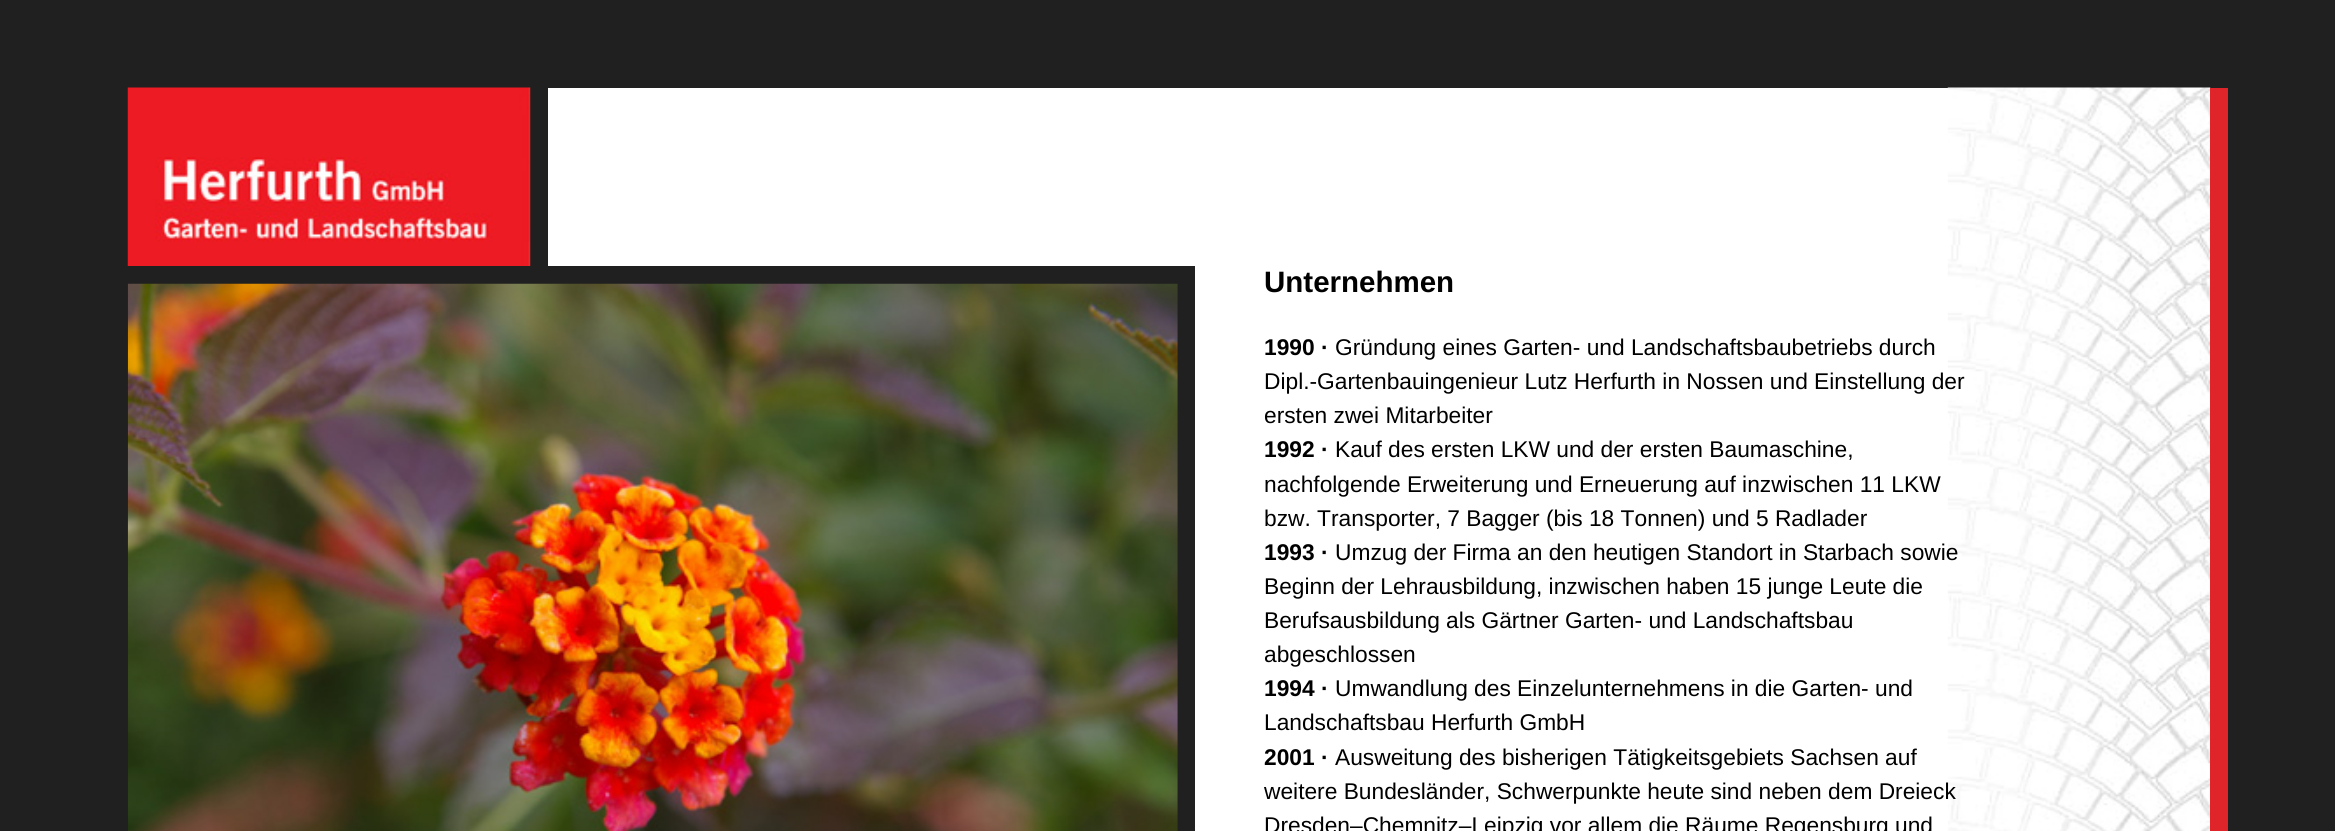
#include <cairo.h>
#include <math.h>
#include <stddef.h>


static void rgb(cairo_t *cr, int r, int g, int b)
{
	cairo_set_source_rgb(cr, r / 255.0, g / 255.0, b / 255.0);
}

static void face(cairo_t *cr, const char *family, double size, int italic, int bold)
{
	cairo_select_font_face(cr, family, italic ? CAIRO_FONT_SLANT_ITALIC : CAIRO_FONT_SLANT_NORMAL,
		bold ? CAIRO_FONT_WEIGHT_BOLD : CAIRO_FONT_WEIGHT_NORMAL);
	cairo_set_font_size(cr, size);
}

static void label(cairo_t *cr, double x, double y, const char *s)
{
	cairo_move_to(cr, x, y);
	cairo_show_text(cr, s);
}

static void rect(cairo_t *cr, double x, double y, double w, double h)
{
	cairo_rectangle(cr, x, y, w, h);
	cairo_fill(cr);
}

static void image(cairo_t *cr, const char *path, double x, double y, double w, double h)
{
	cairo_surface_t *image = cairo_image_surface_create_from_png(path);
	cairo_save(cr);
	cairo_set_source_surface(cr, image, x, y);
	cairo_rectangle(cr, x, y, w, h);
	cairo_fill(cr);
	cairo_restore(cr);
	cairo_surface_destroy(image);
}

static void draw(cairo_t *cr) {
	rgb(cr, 32, 32, 32);
	cairo_paint(cr);
	rgb(cr, 255, 255, 255);
	rect(cr, 548, 88, 1400, 743);
	image(cr, "image0.png", 1947, 87, 264, 744);
	rgb(cr, 223, 37, 42);
	rect(cr, 2210, 88, 18, 743);
	image(cr, "image1.png", 127, 87, 404, 179);
	cairo_rectangle(cr, 119, 275, 1067, 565);
	rgb(cr, 32, 32, 32);
	cairo_set_line_width(cr, 18);
	cairo_stroke(cr);
	image(cr, "image2.png", 127, 283, 1051, 548);
	face(cr, "Liberation Sans", 29.5, 0, 1);
	rgb(cr, 0, 0, 0);
	label(cr, 1264, 292, "Unternehmen");
	face(cr, "Liberation Sans", 22.75, 0, 1);
	label(cr, 1264, 355, "1990 ·");
	face(cr, "Liberation Sans", 22.75, 0, 0);
	label(cr, 1335, 355, "Gründung eines Garten- und Landschaftsbaubetriebs durch");
	label(cr, 1264, 389, "Dipl.-Gartenbauingenieur Lutz Herfurth in Nossen und Einstellung der");
	label(cr, 1264, 423, "ersten zwei Mitarbeiter");
	face(cr, "Liberation Sans", 22.75, 0, 1);
	label(cr, 1264, 457, "1992 ·");
	face(cr, "Liberation Sans", 22.75, 0, 0);
	label(cr, 1335, 457, "Kauf des ersten LKW und der ersten Baumaschine,");
	label(cr, 1264, 492, "nachfolgende Erweiterung und Erneuerung auf inzwischen 11 LKW");
	label(cr, 1264, 526, "bzw. Transporter, 7 Bagger (bis 18 Tonnen) und 5 Radlader");
	face(cr, "Liberation Sans", 22.75, 0, 1);
	label(cr, 1264, 560, "1993 ·");
	face(cr, "Liberation Sans", 22.75, 0, 0);
	label(cr, 1335, 560, "Umzug der Firma an den heutigen Standort in Starbach sowie");
	label(cr, 1264, 594, "Beginn der Lehrausbildung, inzwischen haben 15 junge Leute die");
	label(cr, 1264, 628, "Berufsausbildung als Gärtner Garten- und Landschaftsbau");
	label(cr, 1264, 662, "abgeschlossen");
	face(cr, "Liberation Sans", 22.75, 0, 1);
	label(cr, 1264, 696, "1994 ·");
	face(cr, "Liberation Sans", 22.75, 0, 0);
	label(cr, 1335, 696, "Umwandlung des Einzelunternehmens in die Garten- und");
	label(cr, 1264, 730, "Landschaftsbau Herfurth GmbH");
	face(cr, "Liberation Sans", 22.75, 0, 1);
	label(cr, 1264, 765, "2001 ·");
	face(cr, "Liberation Sans", 22.75, 0, 0);
	label(cr, 1335, 765, "Ausweitung des bisherigen Tätigkeitsgebiets Sachsen auf");
	label(cr, 1264, 799, "weitere Bundesländer, Schwerpunkte heute sind neben dem Dreieck");
	label(cr, 1264, 833, "Dresden–Chemnitz–Leipzig vor allem die Räume Regensburg und");
}

int main(void) {
	cairo_surface_t *surface = cairo_image_surface_create(CAIRO_FORMAT_RGB24, 2335, 831);
	cairo_t *cr = cairo_create(surface);
	cairo_font_options_t *options = cairo_font_options_create();
	cairo_font_options_set_hint_metrics(options, CAIRO_HINT_METRICS_OFF);
	cairo_font_options_set_hint_style(options, CAIRO_HINT_STYLE_NONE);
	cairo_set_font_options(cr, options);
	cairo_set_miter_limit(cr, 4);
	draw(cr);
	cairo_surface_write_to_png(surface, "render.png");
	cairo_font_options_destroy(options);
	cairo_destroy(cr);
	cairo_surface_destroy(surface);
	return 0;
}
